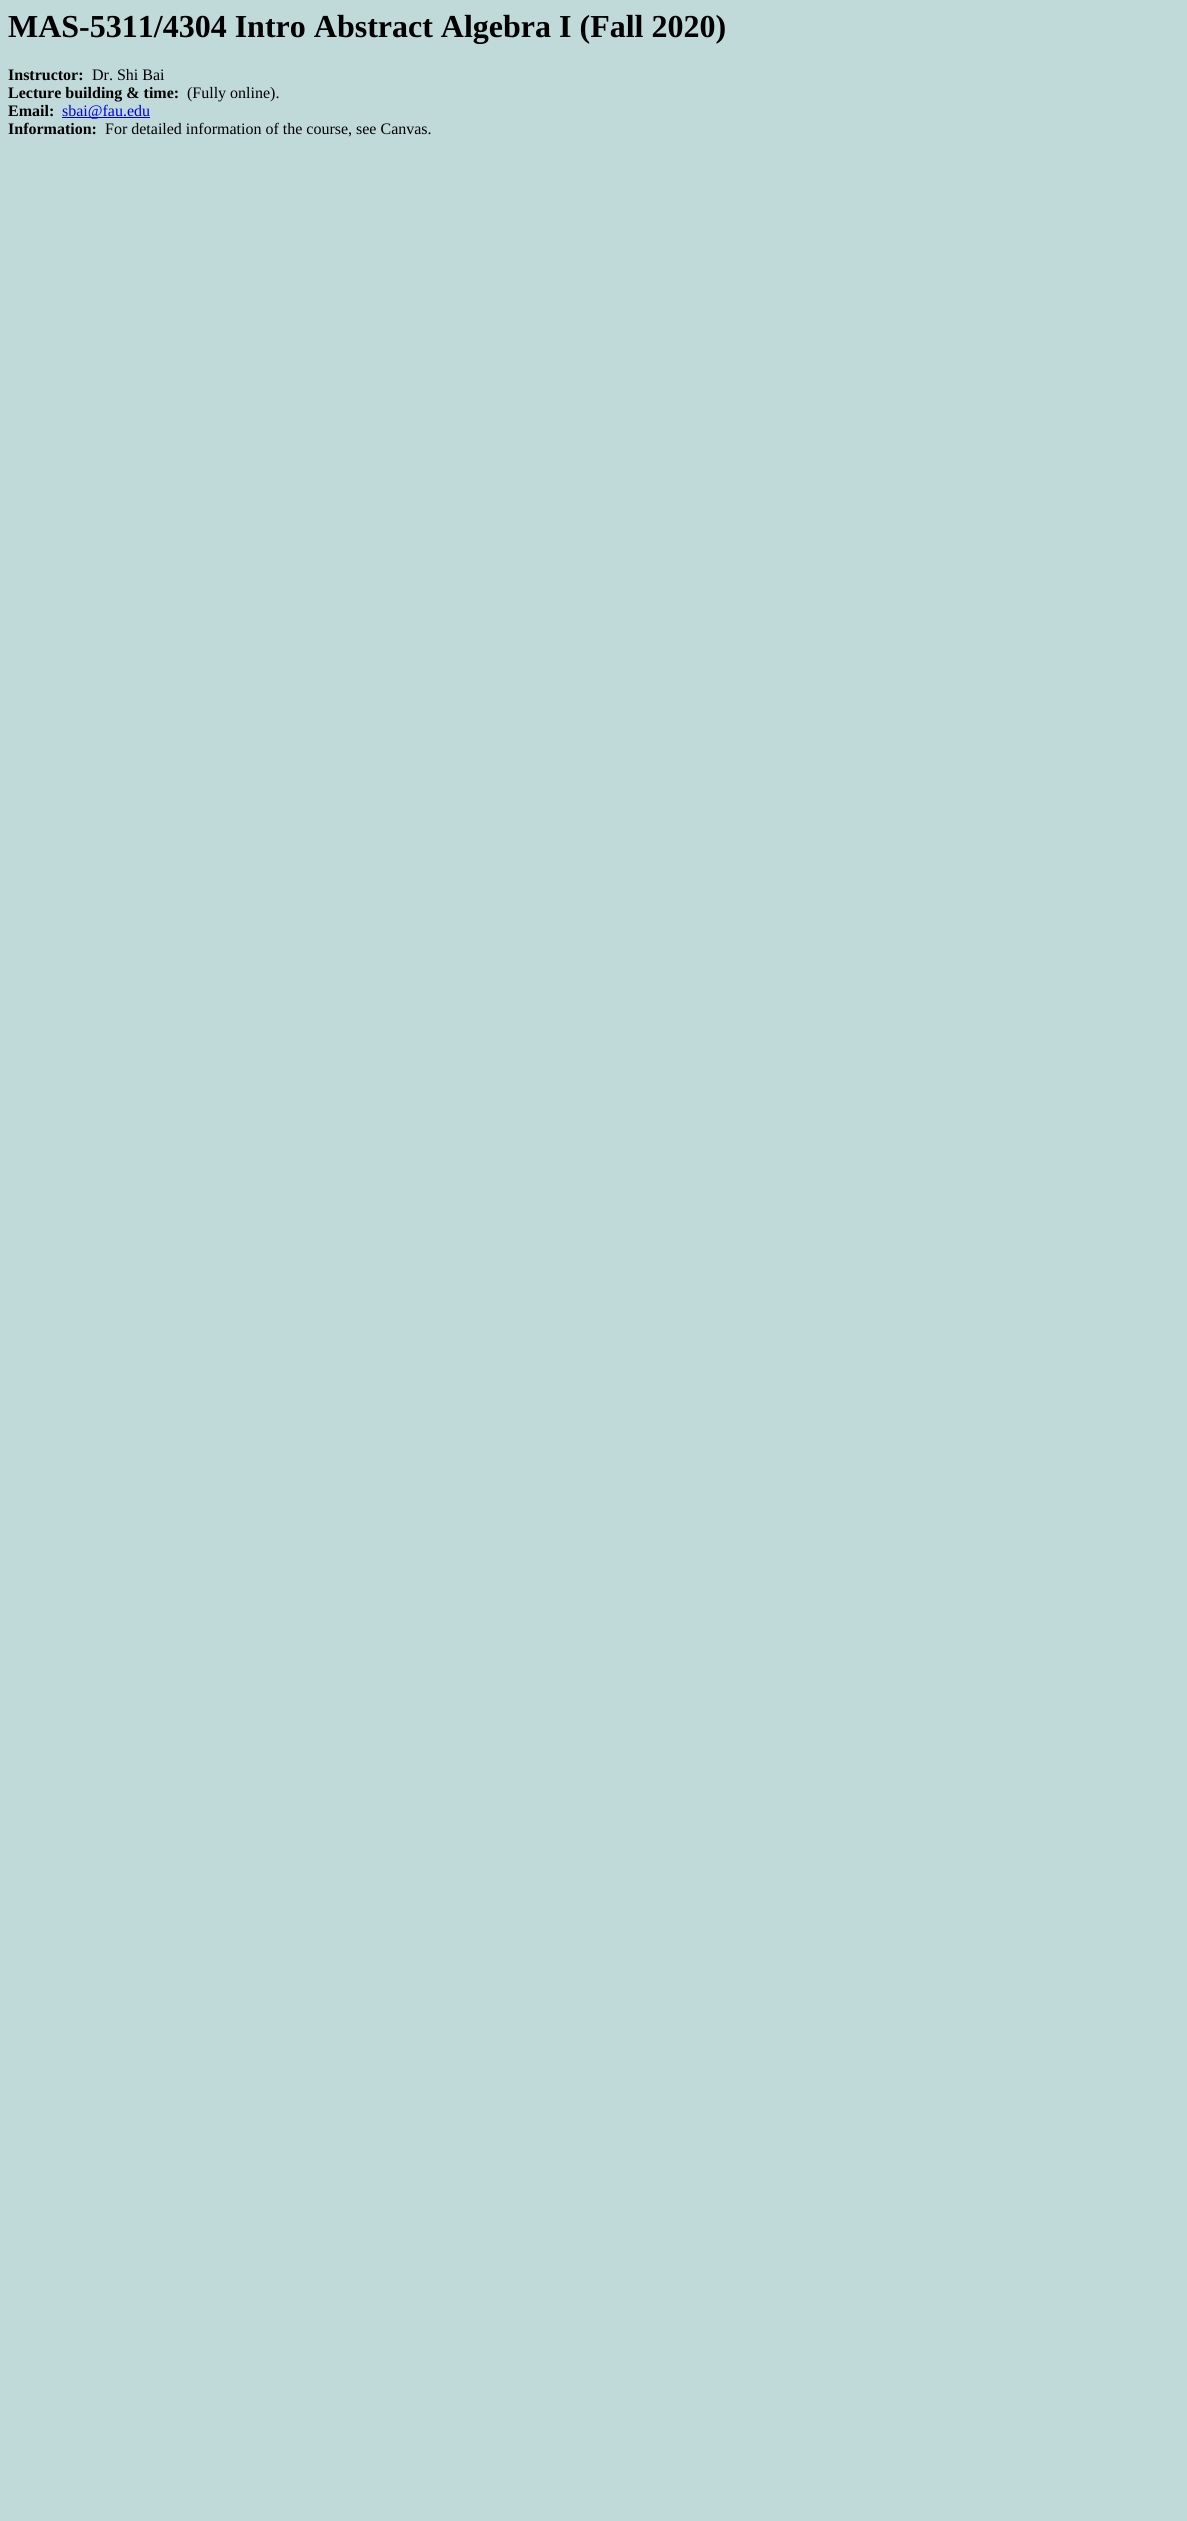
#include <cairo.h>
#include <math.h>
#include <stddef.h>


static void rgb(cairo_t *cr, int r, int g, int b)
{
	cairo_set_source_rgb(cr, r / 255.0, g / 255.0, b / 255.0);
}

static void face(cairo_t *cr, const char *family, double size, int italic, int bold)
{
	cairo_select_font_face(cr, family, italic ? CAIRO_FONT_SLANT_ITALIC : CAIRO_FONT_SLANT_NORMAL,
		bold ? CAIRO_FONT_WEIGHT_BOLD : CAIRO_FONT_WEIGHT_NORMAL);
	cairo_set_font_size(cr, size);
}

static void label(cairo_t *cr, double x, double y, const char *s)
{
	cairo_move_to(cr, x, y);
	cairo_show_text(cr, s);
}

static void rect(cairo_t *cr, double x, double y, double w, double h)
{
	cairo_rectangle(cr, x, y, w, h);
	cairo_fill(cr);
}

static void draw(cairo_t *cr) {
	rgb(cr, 192, 217, 217);
	cairo_paint(cr);
	face(cr, "Liberation Serif", 32, 0, 1);
	rgb(cr, 0, 0, 0);
	label(cr, 8, 37, "MAS-5311/4304 Intro Abstract Algebra I (Fall 2020)");
	face(cr, "Liberation Serif", 16, 0, 1);
	label(cr, 8, 80, "Instructor:");
	face(cr, "Liberation Serif", 16, 0, 0);
	label(cr, 92, 80, "Dr. Shi Bai");
	face(cr, "Liberation Serif", 16, 0, 1);
	label(cr, 8, 98, "Lecture building & time:");
	face(cr, "Liberation Serif", 16, 0, 0);
	label(cr, 187, 98, "(Fully online).");
	face(cr, "Liberation Serif", 16, 0, 1);
	label(cr, 8, 116, "Email:");
	rgb(cr, 0, 0, 238);
	rect(cr, 62, 117, 88, 1);
	face(cr, "Liberation Serif", 16, 0, 0);
	label(cr, 62, 116, "sbai@fau.edu");
	face(cr, "Liberation Serif", 16, 0, 1);
	rgb(cr, 0, 0, 0);
	label(cr, 8, 134, "Information:");
	face(cr, "Liberation Serif", 16, 0, 0);
	label(cr, 105, 134, "For detailed information of the course, see Canvas.");
}

int main(void) {
	cairo_surface_t *surface = cairo_image_surface_create(CAIRO_FORMAT_RGB24, 1187, 2521);
	cairo_t *cr = cairo_create(surface);
	cairo_font_options_t *options = cairo_font_options_create();
	cairo_font_options_set_hint_metrics(options, CAIRO_HINT_METRICS_OFF);
	cairo_font_options_set_hint_style(options, CAIRO_HINT_STYLE_NONE);
	cairo_set_font_options(cr, options);
	cairo_set_miter_limit(cr, 4);
	draw(cr);
	cairo_surface_write_to_png(surface, "render.png");
	cairo_font_options_destroy(options);
	cairo_destroy(cr);
	cairo_surface_destroy(surface);
	return 0;
}
